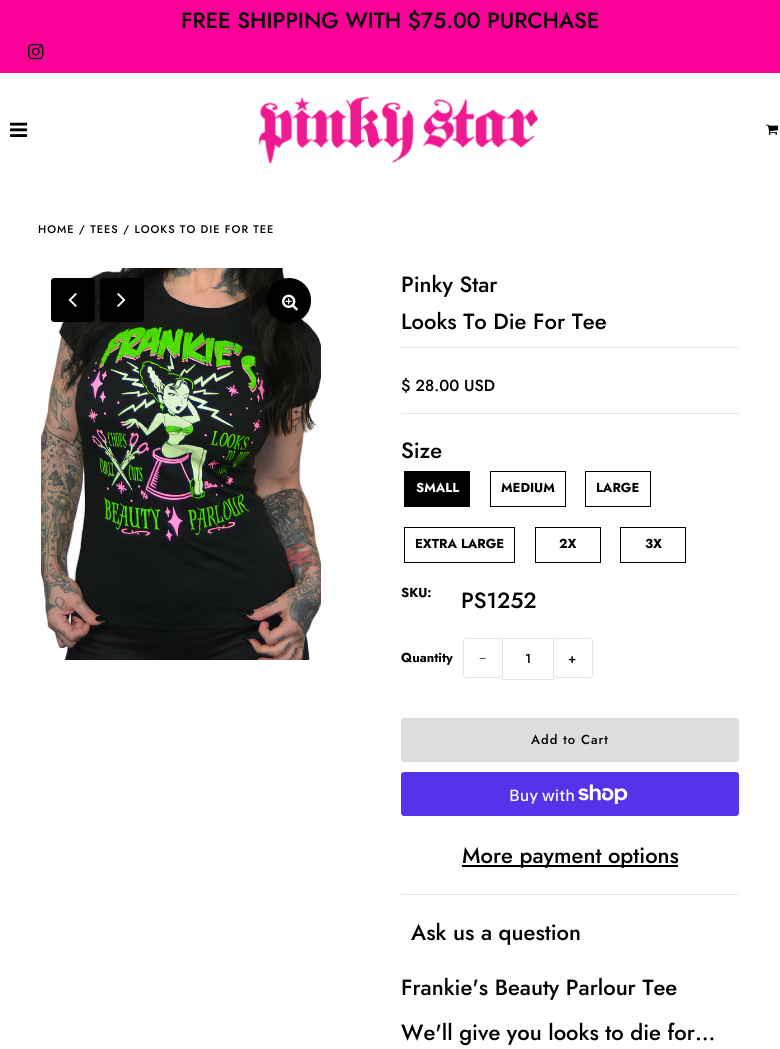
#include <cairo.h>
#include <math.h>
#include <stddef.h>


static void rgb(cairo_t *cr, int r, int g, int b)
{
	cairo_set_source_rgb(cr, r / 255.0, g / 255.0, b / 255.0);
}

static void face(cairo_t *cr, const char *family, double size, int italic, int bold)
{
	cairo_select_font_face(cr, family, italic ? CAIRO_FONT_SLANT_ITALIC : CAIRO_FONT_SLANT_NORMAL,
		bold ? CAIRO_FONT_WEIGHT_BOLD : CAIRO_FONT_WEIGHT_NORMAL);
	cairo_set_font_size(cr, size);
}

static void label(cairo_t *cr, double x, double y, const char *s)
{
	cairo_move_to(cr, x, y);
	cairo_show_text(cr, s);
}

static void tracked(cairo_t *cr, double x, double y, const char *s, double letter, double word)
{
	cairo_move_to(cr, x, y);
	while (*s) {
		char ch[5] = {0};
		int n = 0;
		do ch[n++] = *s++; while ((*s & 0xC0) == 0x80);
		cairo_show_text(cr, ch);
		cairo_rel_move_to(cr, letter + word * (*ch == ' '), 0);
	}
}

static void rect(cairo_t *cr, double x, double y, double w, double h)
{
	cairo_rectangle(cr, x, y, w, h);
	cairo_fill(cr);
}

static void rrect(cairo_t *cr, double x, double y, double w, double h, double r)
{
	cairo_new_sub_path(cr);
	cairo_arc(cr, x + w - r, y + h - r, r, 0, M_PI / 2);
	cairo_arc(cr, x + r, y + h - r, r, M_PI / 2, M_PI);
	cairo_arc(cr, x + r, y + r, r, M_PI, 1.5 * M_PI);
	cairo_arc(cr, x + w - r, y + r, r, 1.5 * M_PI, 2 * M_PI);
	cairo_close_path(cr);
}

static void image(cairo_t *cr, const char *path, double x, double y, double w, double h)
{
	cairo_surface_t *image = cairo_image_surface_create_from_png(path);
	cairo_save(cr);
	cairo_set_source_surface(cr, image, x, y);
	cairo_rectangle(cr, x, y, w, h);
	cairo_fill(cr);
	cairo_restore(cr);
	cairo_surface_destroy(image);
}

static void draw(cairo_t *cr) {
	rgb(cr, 255, 255, 255);
	cairo_paint(cr);
	rgb(cr, 251, 0, 152);
	rect(cr, 0, 0, 780, 73);
	face(cr, "Jost Medium", 22, 0, 0);
	rgb(cr, 0, 0, 0);
	label(cr, 181, 28, "FREE SHIPPING WITH $75.00 PURCHASE");
	image(cr, "image0.png", 28, 43, 16, 17);
	image(cr, "image1.png", 10, 122, 18, 15);
	image(cr, "image2.png", 258, 96, 281, 68);
	image(cr, "image3.png", 766, 124, 13, 11);
	face(cr, "Jost Medium", 11, 0, 0);
	tracked(cr, 38, 233, "HOME / TEES / LOOKS TO DIE FOR TEE", 1, 0);
	image(cr, "image4.png", 41, 268, 280, 392);
	rrect(cr, 267, 278, 44, 45, 22);
	cairo_fill(cr);
	image(cr, "image5.png", 282, 294, 16, 17);
	rrect(cr, 51, 278, 44, 44, 3);
	cairo_fill(cr);
	image(cr, "image6.png", 68, 293, 9, 14);
	rrect(cr, 100, 278, 44, 44, 3);
	cairo_fill(cr);
	image(cr, "image7.png", 117, 293, 9, 14);
	face(cr, "Jost Medium", 22, 0, 0);
	label(cr, 401, 292, "Pinky Star");
	label(cr, 401, 329, "Looks To Die For Tee");
	rgb(cr, 229, 229, 229);
	rect(cr, 401, 347, 338, 1);
	rect(cr, 401, 894, 338, 1);
	rect(cr, 401, 413, 338, 1);
	face(cr, "Jost Medium", 16, 0, 0);
	rgb(cr, 0, 0, 0);
	label(cr, 401, 391, "$ 28.00 USD");
	face(cr, "Jost Medium", 22, 0, 0);
	label(cr, 401, 458, "Size");
	rect(cr, 404, 471, 66, 36);
	face(cr, "Jost", 13, 0, 1);
	rgb(cr, 255, 255, 255);
	label(cr, 416, 492, "SMALL");
	cairo_rectangle(cr, 490.5, 471.5, 75, 35);
	rgb(cr, 0, 0, 0);
	cairo_set_line_width(cr, 1);
	cairo_stroke(cr);
	label(cr, 501, 492, "MEDIUM");
	cairo_rectangle(cr, 585.5, 471.5, 65, 35);
	cairo_stroke(cr);
	label(cr, 596, 492, "LARGE");
	cairo_rectangle(cr, 404.5, 527.5, 110, 35);
	cairo_stroke(cr);
	label(cr, 415, 548, "EXTRA LARGE");
	cairo_rectangle(cr, 535.5, 527.5, 65, 35);
	cairo_stroke(cr);
	label(cr, 559, 548, "2X");
	cairo_rectangle(cr, 620.5, 527.5, 65, 35);
	cairo_stroke(cr);
	label(cr, 645, 548, "3X");
	label(cr, 401, 597, "SKU:");
	face(cr, "Jost Medium", 22, 0, 0);
	label(cr, 461, 608, "PS1252");
	face(cr, "Jost", 13, 0, 1);
	label(cr, 401, 662, "Quantity");
	rrect(cr, 463.5, 638.5, 39, 39, 2.5);
	rgb(cr, 229, 229, 229);
	cairo_stroke(cr);
	face(cr, "Liberation Serif", 13, 0, 0);
	rgb(cr, 0, 0, 0);
	tracked(cr, 479, 663, "−", 1, 0);
	cairo_rectangle(cr, 502.5, 638.5, 51, 41);
	rgb(cr, 229, 229, 229);
	cairo_stroke(cr);
	face(cr, "Jost Medium", 13, 0, 0);
	rgb(cr, 0, 0, 0);
	label(cr, 525, 663, "1");
	rrect(cr, 553.5, 638.5, 39, 39, 2.5);
	rgb(cr, 229, 229, 229);
	cairo_stroke(cr);
	rgb(cr, 0, 0, 0);
	tracked(cr, 568, 663, "+", 1, 0);
	rgb(cr, 221, 221, 221);
	rrect(cr, 401, 718, 338, 44, 3);
	cairo_fill(cr);
	rgb(cr, 0, 0, 0);
	tracked(cr, 531, 744, "Add to Cart", 1, 0);
	rgb(cr, 84, 51, 235);
	rrect(cr, 401, 772, 338, 44, 3);
	cairo_fill(cr);
	face(cr, "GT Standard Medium", 16, 0, 0);
	rgb(cr, 255, 255, 255);
	label(cr, 509, 801, "Buy with");
	image(cr, "image8.png", 578, 784, 50, 20);
	rgb(cr, 0, 0, 0);
	rect(cr, 462, 865, 216, 2);
	face(cr, "Jost Medium", 22, 0, 0);
	label(cr, 462, 863, "More payment options");
	label(cr, 411, 940, "Ask us a question");
	label(cr, 401, 995, "Frankie's Beauty Parlour Tee");
	label(cr, 401, 1040, "We'll give you looks to die for...");
}

int main(void) {
	cairo_surface_t *surface = cairo_image_surface_create(CAIRO_FORMAT_RGB24, 780, 1049);
	cairo_t *cr = cairo_create(surface);
	cairo_font_options_t *options = cairo_font_options_create();
	cairo_font_options_set_hint_metrics(options, CAIRO_HINT_METRICS_OFF);
	cairo_font_options_set_hint_style(options, CAIRO_HINT_STYLE_NONE);
	cairo_set_font_options(cr, options);
	cairo_set_miter_limit(cr, 4);
	draw(cr);
	cairo_surface_write_to_png(surface, "render.png");
	cairo_font_options_destroy(options);
	cairo_destroy(cr);
	cairo_surface_destroy(surface);
	return 0;
}
